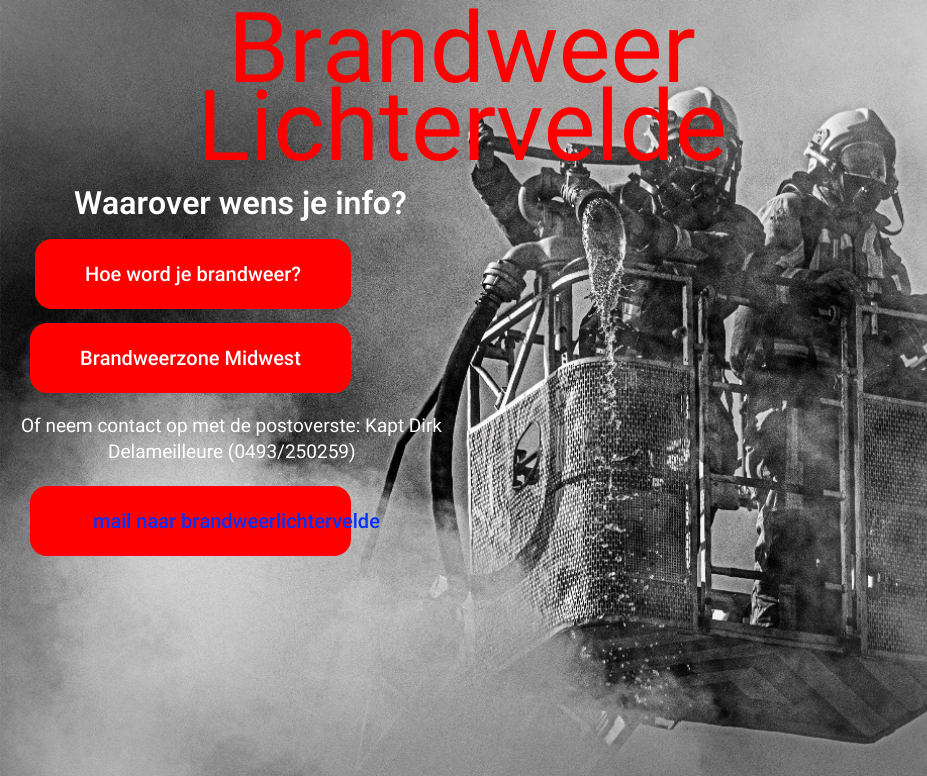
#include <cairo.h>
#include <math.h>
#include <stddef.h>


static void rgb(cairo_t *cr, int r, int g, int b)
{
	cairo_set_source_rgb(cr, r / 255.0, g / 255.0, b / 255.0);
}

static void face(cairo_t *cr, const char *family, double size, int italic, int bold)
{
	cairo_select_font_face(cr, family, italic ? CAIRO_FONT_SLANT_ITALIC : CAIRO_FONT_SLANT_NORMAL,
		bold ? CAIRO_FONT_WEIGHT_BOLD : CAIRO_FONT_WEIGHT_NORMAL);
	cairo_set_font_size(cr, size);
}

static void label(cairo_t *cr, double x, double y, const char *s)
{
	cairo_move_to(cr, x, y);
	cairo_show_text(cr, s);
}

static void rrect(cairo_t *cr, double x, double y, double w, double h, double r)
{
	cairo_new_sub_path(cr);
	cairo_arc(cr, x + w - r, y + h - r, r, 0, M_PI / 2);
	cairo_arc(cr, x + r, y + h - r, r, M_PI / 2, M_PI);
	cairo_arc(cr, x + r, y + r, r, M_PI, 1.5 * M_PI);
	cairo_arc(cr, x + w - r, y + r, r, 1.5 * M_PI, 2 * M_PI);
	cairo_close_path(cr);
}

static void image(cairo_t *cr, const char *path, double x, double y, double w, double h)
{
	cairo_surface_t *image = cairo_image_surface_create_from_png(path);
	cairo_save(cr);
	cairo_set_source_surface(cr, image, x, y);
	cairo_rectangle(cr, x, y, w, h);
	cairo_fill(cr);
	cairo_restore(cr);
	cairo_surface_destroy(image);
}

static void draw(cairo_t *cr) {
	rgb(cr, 255, 255, 255);
	cairo_paint(cr);
	image(cr, "image0.png", 0, 0, 927, 776);
	face(cr, "Roboto", 98, 0, 0);
	rgb(cr, 255, 0, 0);
	label(cr, 228, 82, "Brandweer");
	label(cr, 197, 160, "Lichtervelde");
	face(cr, "Roboto SemiBold", 32, 0, 0);
	rgb(cr, 255, 255, 255);
	label(cr, 74, 214, "Waarover wens je info?");
	rgb(cr, 255, 0, 0);
	rrect(cr, 35, 239, 316, 70, 17);
	cairo_fill(cr);
	face(cr, "Roboto Medium", 20, 0, 0);
	rgb(cr, 255, 255, 255);
	label(cr, 85, 281, "Hoe word je brandweer?");
	rgb(cr, 255, 0, 0);
	rrect(cr, 30, 323, 321, 70, 17);
	cairo_fill(cr);
	rgb(cr, 255, 255, 255);
	label(cr, 80, 365, "Brandweerzone Midwest");
	face(cr, "Roboto", 19, 0, 0);
	label(cr, 21, 432, "Of neem contact op met de postoverste: Kapt Dirk");
	label(cr, 108, 458, "Delameilleure (0493/250259)");
	rgb(cr, 255, 0, 0);
	rrect(cr, 30, 486, 321, 70, 17);
	cairo_fill(cr);
	face(cr, "Roboto Medium", 20, 0, 0);
	rgb(cr, 0, 49, 255);
	label(cr, 93, 528, "mail naar brandweerlichtervelde");
}

int main(void) {
	cairo_surface_t *surface = cairo_image_surface_create(CAIRO_FORMAT_RGB24, 927, 776);
	cairo_t *cr = cairo_create(surface);
	cairo_font_options_t *options = cairo_font_options_create();
	cairo_font_options_set_hint_metrics(options, CAIRO_HINT_METRICS_OFF);
	cairo_font_options_set_hint_style(options, CAIRO_HINT_STYLE_NONE);
	cairo_set_font_options(cr, options);
	cairo_set_miter_limit(cr, 4);
	draw(cr);
	cairo_surface_write_to_png(surface, "render.png");
	cairo_font_options_destroy(options);
	cairo_destroy(cr);
	cairo_surface_destroy(surface);
	return 0;
}
